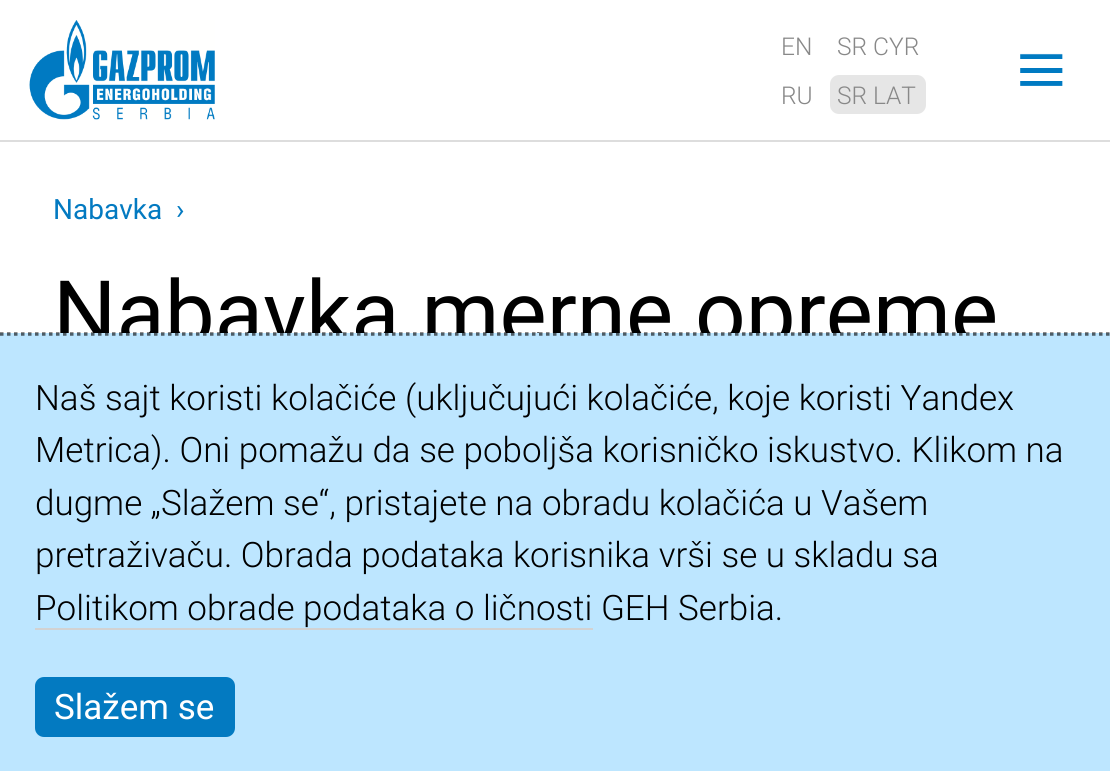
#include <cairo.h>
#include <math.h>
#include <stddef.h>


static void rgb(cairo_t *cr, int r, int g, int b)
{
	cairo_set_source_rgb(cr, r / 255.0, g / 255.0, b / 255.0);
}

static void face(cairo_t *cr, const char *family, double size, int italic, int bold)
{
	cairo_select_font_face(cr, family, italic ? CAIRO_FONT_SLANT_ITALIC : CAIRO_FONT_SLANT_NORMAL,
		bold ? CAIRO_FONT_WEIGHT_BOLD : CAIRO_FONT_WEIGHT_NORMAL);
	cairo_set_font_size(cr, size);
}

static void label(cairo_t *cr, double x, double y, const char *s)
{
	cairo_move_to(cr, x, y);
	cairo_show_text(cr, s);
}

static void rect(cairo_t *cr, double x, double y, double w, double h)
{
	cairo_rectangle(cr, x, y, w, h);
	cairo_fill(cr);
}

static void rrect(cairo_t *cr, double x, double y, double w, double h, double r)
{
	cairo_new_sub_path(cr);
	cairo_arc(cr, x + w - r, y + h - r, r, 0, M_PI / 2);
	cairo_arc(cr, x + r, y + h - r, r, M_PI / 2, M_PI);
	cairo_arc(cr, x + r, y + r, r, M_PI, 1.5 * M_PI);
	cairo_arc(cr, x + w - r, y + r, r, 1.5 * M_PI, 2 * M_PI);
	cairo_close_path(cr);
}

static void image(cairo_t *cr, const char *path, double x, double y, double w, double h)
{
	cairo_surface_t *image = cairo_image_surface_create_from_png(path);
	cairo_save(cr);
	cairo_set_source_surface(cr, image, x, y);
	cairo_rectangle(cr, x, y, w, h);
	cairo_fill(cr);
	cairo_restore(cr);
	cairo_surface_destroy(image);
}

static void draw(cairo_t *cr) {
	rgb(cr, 255, 255, 255);
	cairo_paint(cr);
	image(cr, "image0.png", 29, 20, 186, 100);
	face(cr, "Roboto Light", 24.5, 0, 0);
	rgb(cr, 136, 136, 136);
	label(cr, 781, 55, "EN");
	label(cr, 837, 55, "SR CYR");
	label(cr, 781, 104, "RU");
	rgb(cr, 230, 230, 230);
	rrect(cr, 830, 75, 96, 39, 9);
	cairo_fill(cr);
	rgb(cr, 136, 136, 136);
	label(cr, 837, 104, "SR LAT");
	image(cr, "image1.png", 1020, 53, 43, 33);
	rgb(cr, 221, 221, 221);
	rect(cr, 0, 140, 1110, 2);
	face(cr, "Roboto", 28, 0, 0);
	rgb(cr, 3, 122, 193);
	label(cr, 53, 219, "Nabavka");
	label(cr, 176, 219, "›");
	face(cr, "Roboto", 88.9, 0, 0);
	rgb(cr, 0, 0, 0);
	label(cr, 53, 344, "Nabavka merne opreme");
	rgb(cr, 189, 230, 255);
	rect(cr, 0, 333, 1110, 438);
	cairo_new_path(cr);
	cairo_move_to(cr, 0, 334);
	cairo_line_to(cr, 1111, 334);
	cairo_set_source_rgba(cr, 0, 0, 0, 0.6);
	cairo_set_line_width(cr, 3.5);
	cairo_set_dash(cr, (double[]){3.5, 3.5}, 2, 0);
	cairo_stroke(cr);
	face(cr, "Roboto Light", 35, 0, 0);
	rgb(cr, 0, 0, 0);
	label(cr, 35, 410, "Naš sajt koristi kolačiće (uključujući kolačiće, koje koristi Yandex");
	label(cr, 35, 462, "Metrica). Oni pomažu da se poboljša korisničko iskustvo. Klikom na");
	label(cr, 35, 515, "dugme „Slažem se“, pristajete na obradu kolačića u Vašem");
	label(cr, 35, 567, "pretraživaču. Obrada podataka korisnika vrši se u skladu sa");
	label(cr, 35, 620, "Politikom obrade podataka o ličnosti GEH Serbia.");
	rgb(cr, 210, 210, 210);
	rect(cr, 35, 628, 558, 2);
	rgb(cr, 3, 122, 193);
	rrect(cr, 35, 677, 200, 60, 9);
	cairo_fill(cr);
	face(cr, "Roboto", 35, 0, 0);
	rgb(cr, 255, 255, 255);
	label(cr, 54, 719, "Slažem se");
}

int main(void) {
	cairo_surface_t *surface = cairo_image_surface_create(CAIRO_FORMAT_RGB24, 1110, 771);
	cairo_t *cr = cairo_create(surface);
	cairo_font_options_t *options = cairo_font_options_create();
	cairo_font_options_set_hint_metrics(options, CAIRO_HINT_METRICS_OFF);
	cairo_font_options_set_hint_style(options, CAIRO_HINT_STYLE_NONE);
	cairo_set_font_options(cr, options);
	cairo_set_miter_limit(cr, 4);
	draw(cr);
	cairo_surface_write_to_png(surface, "render.png");
	cairo_font_options_destroy(options);
	cairo_destroy(cr);
	cairo_surface_destroy(surface);
	return 0;
}
